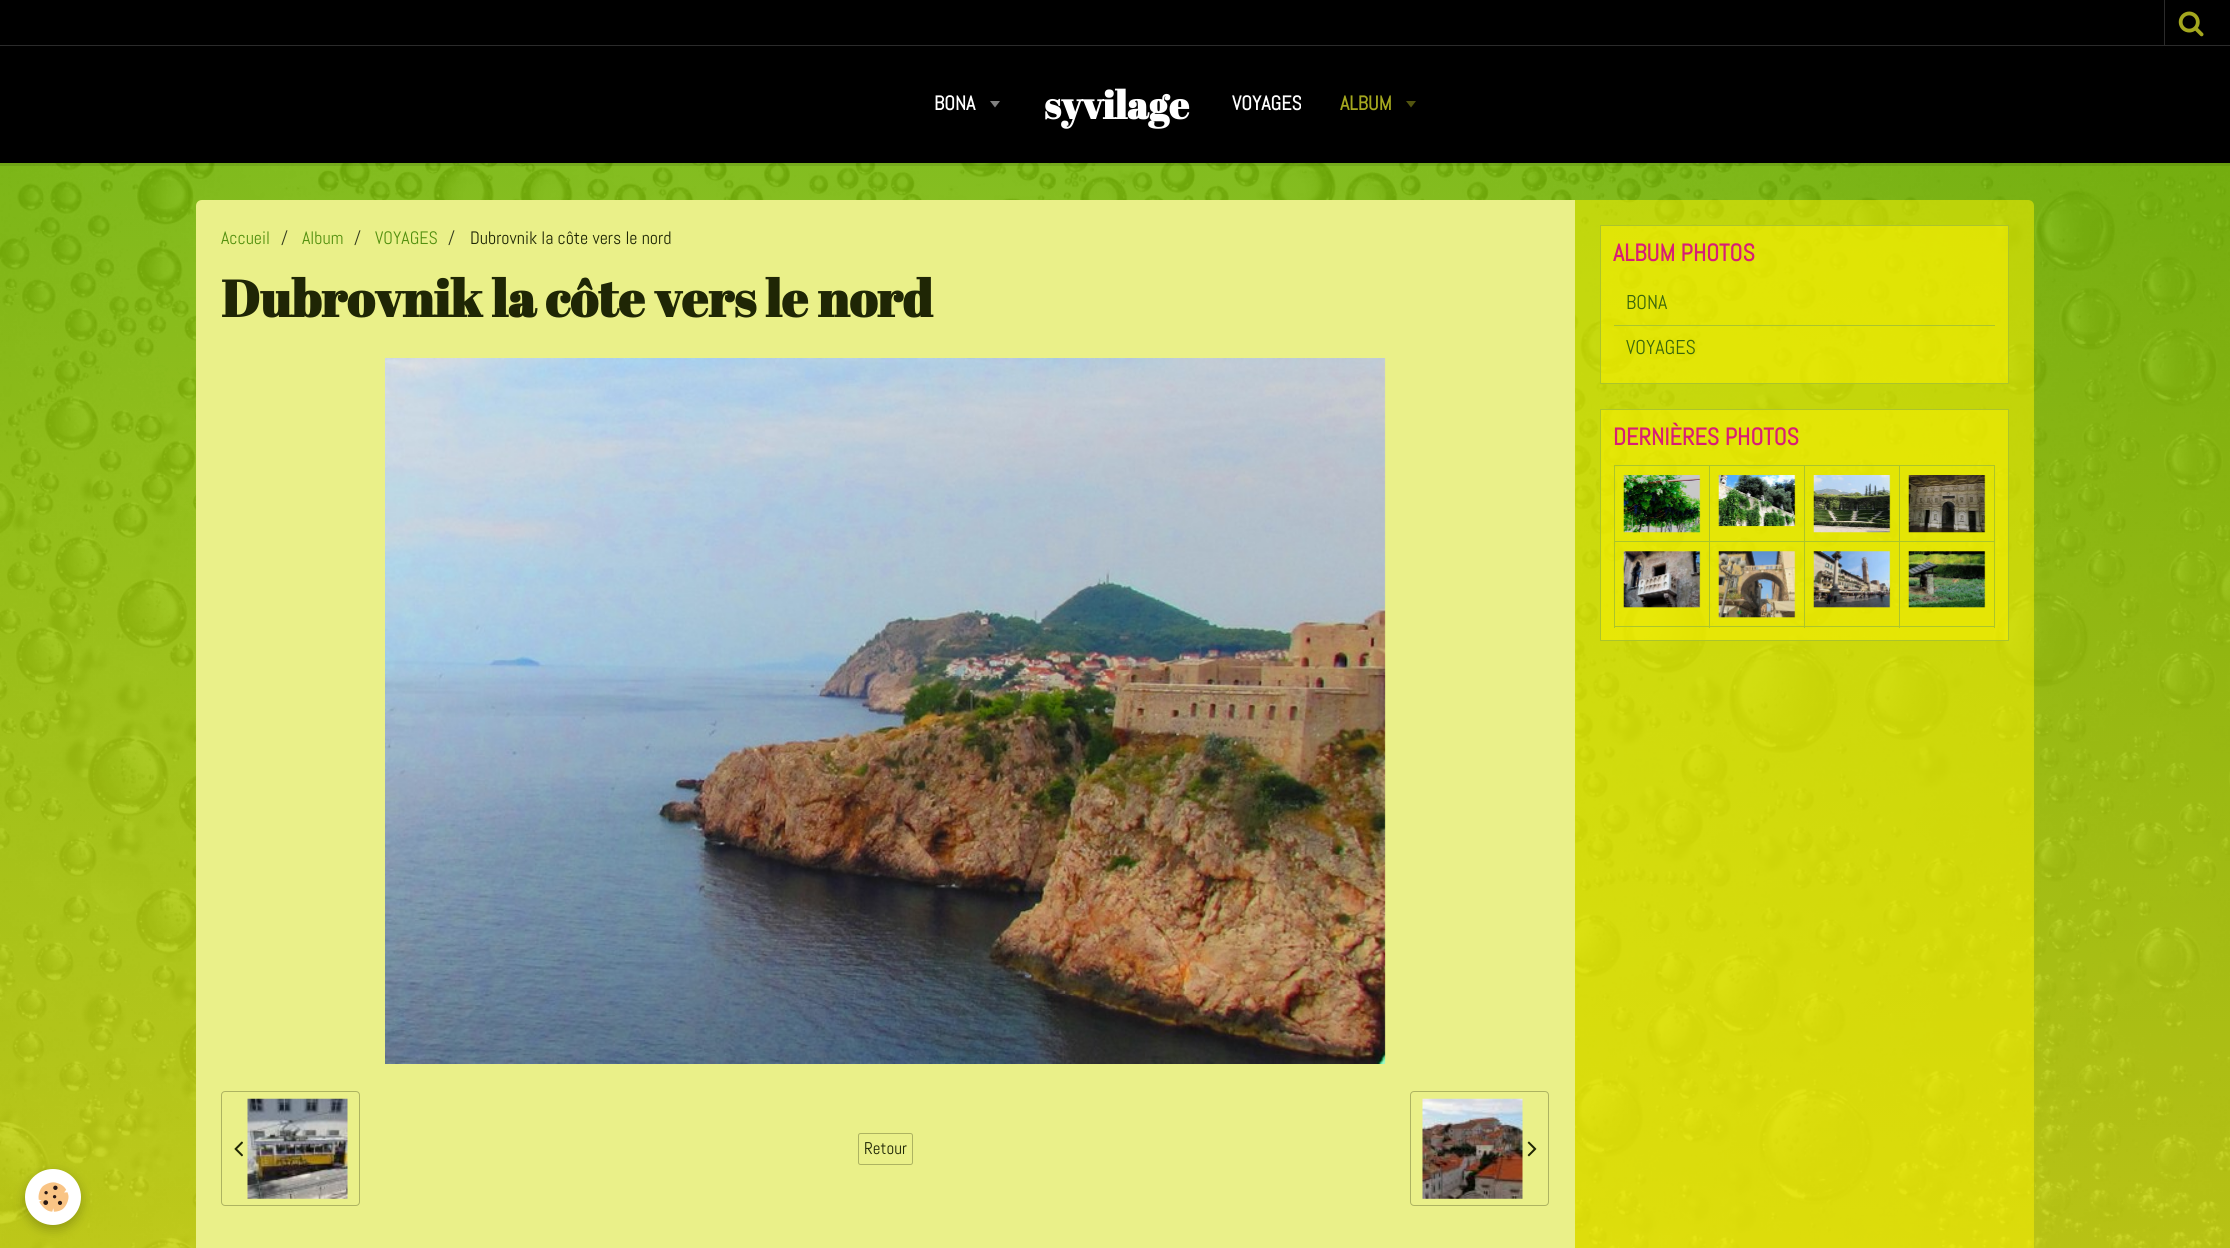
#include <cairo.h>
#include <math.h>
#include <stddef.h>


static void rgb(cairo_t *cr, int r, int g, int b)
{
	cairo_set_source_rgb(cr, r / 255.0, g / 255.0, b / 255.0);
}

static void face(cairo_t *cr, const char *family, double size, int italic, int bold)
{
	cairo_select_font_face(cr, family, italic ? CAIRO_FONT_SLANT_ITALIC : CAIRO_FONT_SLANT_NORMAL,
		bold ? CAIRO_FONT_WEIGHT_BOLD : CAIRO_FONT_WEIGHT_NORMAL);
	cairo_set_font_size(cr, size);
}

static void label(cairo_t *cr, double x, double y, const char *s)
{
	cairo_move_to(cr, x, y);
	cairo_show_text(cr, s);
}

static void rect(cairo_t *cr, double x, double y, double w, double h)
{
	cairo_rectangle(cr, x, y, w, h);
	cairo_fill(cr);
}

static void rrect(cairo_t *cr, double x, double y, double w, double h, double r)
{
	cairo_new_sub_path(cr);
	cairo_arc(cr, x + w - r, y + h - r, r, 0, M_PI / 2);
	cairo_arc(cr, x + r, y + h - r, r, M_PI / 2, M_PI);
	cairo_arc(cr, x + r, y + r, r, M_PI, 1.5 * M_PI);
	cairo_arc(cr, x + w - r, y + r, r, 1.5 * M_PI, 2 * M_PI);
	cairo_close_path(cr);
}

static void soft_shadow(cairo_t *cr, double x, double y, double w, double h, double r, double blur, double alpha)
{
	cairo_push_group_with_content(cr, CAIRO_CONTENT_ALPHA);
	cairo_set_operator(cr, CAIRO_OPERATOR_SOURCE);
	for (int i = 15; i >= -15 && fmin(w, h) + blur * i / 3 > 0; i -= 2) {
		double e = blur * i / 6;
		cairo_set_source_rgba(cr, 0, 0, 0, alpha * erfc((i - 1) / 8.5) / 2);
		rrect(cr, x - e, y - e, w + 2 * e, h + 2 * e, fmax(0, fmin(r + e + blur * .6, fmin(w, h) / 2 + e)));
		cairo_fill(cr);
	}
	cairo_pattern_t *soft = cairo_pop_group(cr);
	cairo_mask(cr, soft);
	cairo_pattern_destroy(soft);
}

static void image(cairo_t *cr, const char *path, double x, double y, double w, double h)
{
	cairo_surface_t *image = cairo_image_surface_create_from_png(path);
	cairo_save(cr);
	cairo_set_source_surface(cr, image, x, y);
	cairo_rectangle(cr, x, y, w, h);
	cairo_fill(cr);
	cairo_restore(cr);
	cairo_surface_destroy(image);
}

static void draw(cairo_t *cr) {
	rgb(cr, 255, 255, 255);
	cairo_paint(cr);
	image(cr, "image0.png", 0, 163, 2230, 1085);
	cairo_set_source_rgba(cr, 0, 0, 0, 0.1);
	rect(cr, 0, 163, 2230, 3);
	rgb(cr, 0, 0, 0);
	rect(cr, 0, 0, 2230, 163);
	rgb(cr, 43, 43, 43);
	rect(cr, 0, 45, 2230, 1);
	rect(cr, 2164, 0, 1, 45);
	image(cr, "image1.png", 2178, 11, 26, 26);
	face(cr, "Abel", 20, 0, 1);
	rgb(cr, 255, 255, 255);
	label(cr, 934, 110, "BONA");
	rgb(cr, 128, 128, 128);
	cairo_new_path(cr);
	cairo_move_to(cr, 990, 101);
	cairo_line_to(cr, 1000, 101);
	cairo_line_to(cr, 995, 107.5);
	cairo_close_path(cr);
	cairo_fill(cr);
	face(cr, "Abril Fatface", 39, 0, 1);
	rgb(cr, 255, 255, 255);
	label(cr, 1044, 119, "syvilage");
	face(cr, "Abel", 20, 0, 1);
	label(cr, 1232, 110, "VOYAGES");
	rgb(cr, 164, 167, 30);
	label(cr, 1340, 110, "ALBUM");
	rgb(cr, 82, 84, 15);
	cairo_new_path(cr);
	cairo_move_to(cr, 1406, 101);
	cairo_line_to(cr, 1416, 101);
	cairo_line_to(cr, 1411, 107.5);
	cairo_close_path(cr);
	cairo_fill(cr);
	rgb(cr, 234, 240, 137);
	cairo_new_path(cr);
	cairo_move_to(cr, 202, 200);
	cairo_line_to(cr, 1575, 200);
	cairo_line_to(cr, 1575, 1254);
	cairo_line_to(cr, 196, 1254);
	cairo_line_to(cr, 196, 206);
	cairo_curve_to(cr, 196, 202.5, 198.5, 200, 202, 200);
	cairo_close_path(cr);
	cairo_fill(cr);
	face(cr, "Abel", 18, 0, 0);
	rgb(cr, 83, 144, 15);
	label(cr, 221, 244, "Accueil");
	rgb(cr, 53, 60, 30);
	label(cr, 281, 244, "/");
	rgb(cr, 83, 144, 15);
	label(cr, 302, 244, "Album");
	rgb(cr, 53, 60, 30);
	label(cr, 354, 244, "/");
	rgb(cr, 83, 144, 15);
	label(cr, 375, 244, "VOYAGES");
	rgb(cr, 53, 60, 30);
	label(cr, 448, 244, "/");
	rgb(cr, 31, 38, 5);
	label(cr, 470, 244, "Dubrovnik la côte vers le nord");
	face(cr, "Abril Fatface", 51.5, 0, 1);
	label(cr, 221, 317, "Dubrovnik la côte vers le nord");
	image(cr, "image2.png", 385, 358, 1001, 706);
	image(cr, "image3.png", 234, 1141, 9, 16);
	image(cr, "image4.png", 247, 1098, 101, 101);
	rrect(cr, 221.5, 1091.5, 138, 114, 3.5);
	rgb(cr, 173, 179, 97);
	cairo_set_line_width(cr, 1);
	cairo_stroke(cr);
	rrect(cr, 858.5, 1133.5, 54, 31, 2);
	cairo_stroke(cr);
	face(cr, "Abel", 17, 0, 0);
	rgb(cr, 31, 38, 5);
	label(cr, 864, 1154, "Retour");
	image(cr, "image5.png", 1422, 1098, 101, 101);
	image(cr, "image6.png", 1527, 1141, 10, 16);
	rrect(cr, 1410.5, 1091.5, 138, 114, 3.5);
	rgb(cr, 173, 179, 97);
	cairo_stroke(cr);
	cairo_set_source_rgba(cr, 1, 0.957, 0, 0.5);
	cairo_new_path(cr);
	cairo_move_to(cr, 1575, 200);
	cairo_line_to(cr, 2028, 200);
	cairo_curve_to(cr, 2031.5, 200, 2034, 202.5, 2034, 206);
	cairo_line_to(cr, 2034, 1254);
	cairo_line_to(cr, 1575, 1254);
	cairo_close_path(cr);
	cairo_fill(cr);
	cairo_rectangle(cr, 1600.5, 225.5, 408, 158);
	cairo_fill_preserve(cr);
	rgb(cr, 171, 196, 44);
	cairo_stroke(cr);
	face(cr, "Abel", 24, 0, 1);
	rgb(cr, 216, 29, 118);
	label(cr, 1613, 261, "ALBUM PHOTOS");
	rgb(cr, 171, 196, 44);
	rect(cr, 1614, 325, 381, 1);
	face(cr, "Abel", 20, 0, 0);
	rgb(cr, 60, 103, 12);
	label(cr, 1626, 309, "BONA");
	label(cr, 1626, 354, "VOYAGES");
	cairo_set_source_rgba(cr, 1, 0.957, 0, 0.5);
	cairo_rectangle(cr, 1600.5, 409.5, 408, 231);
	cairo_fill_preserve(cr);
	rgb(cr, 171, 196, 44);
	cairo_stroke(cr);
	face(cr, "Abel", 24, 0, 1);
	rgb(cr, 216, 29, 118);
	label(cr, 1613, 445, "DERNIÈRES PHOTOS");
	rgb(cr, 171, 196, 44);
	rect(cr, 1614, 465, 1, 163);
	rect(cr, 1615, 465, 380, 1);
	rect(cr, 1709, 465, 1, 78);
	rect(cr, 1615, 541, 95, 1);
	image(cr, "image7.png", 1623, 475, 78, 58);
	rect(cr, 1804, 465, 1, 78);
	rect(cr, 1710, 541, 95, 1);
	image(cr, "image8.png", 1718, 475, 78, 52);
	rect(cr, 1899, 465, 1, 78);
	rect(cr, 1805, 541, 95, 1);
	image(cr, "image9.png", 1813, 475, 78, 58);
	rect(cr, 1994, 465, 1, 78);
	rect(cr, 1900, 541, 95, 1);
	image(cr, "image10.png", 1908, 475, 78, 58);
	rect(cr, 1709, 541, 1, 87);
	rect(cr, 1615, 626, 95, 1);
	image(cr, "image11.png", 1623, 551, 78, 57);
	rect(cr, 1804, 541, 1, 87);
	rect(cr, 1710, 626, 95, 1);
	image(cr, "image12.png", 1718, 551, 78, 67);
	rect(cr, 1899, 541, 1, 87);
	rect(cr, 1805, 626, 95, 1);
	image(cr, "image13.png", 1813, 551, 78, 57);
	rect(cr, 1994, 541, 1, 87);
	rect(cr, 1900, 626, 95, 1);
	image(cr, "image14.png", 1908, 551, 78, 57);
	rgb(cr, 0, 0, 0);
	soft_shadow(cr, 25, 1173, 56, 56, 28, 6, 0.24);
	rgb(cr, 255, 255, 255);
	cairo_arc(cr, 53, 1197, 28, 0, 2 * M_PI);
	cairo_fill(cr);
	image(cr, "image15.png", 38, 1182, 31, 30);
}

int main(void) {
	cairo_surface_t *surface = cairo_image_surface_create(CAIRO_FORMAT_RGB24, 2230, 1248);
	cairo_t *cr = cairo_create(surface);
	cairo_font_options_t *options = cairo_font_options_create();
	cairo_font_options_set_hint_metrics(options, CAIRO_HINT_METRICS_OFF);
	cairo_font_options_set_hint_style(options, CAIRO_HINT_STYLE_NONE);
	cairo_set_font_options(cr, options);
	cairo_set_miter_limit(cr, 4);
	draw(cr);
	cairo_surface_write_to_png(surface, "render.png");
	cairo_font_options_destroy(options);
	cairo_destroy(cr);
	cairo_surface_destroy(surface);
	return 0;
}
